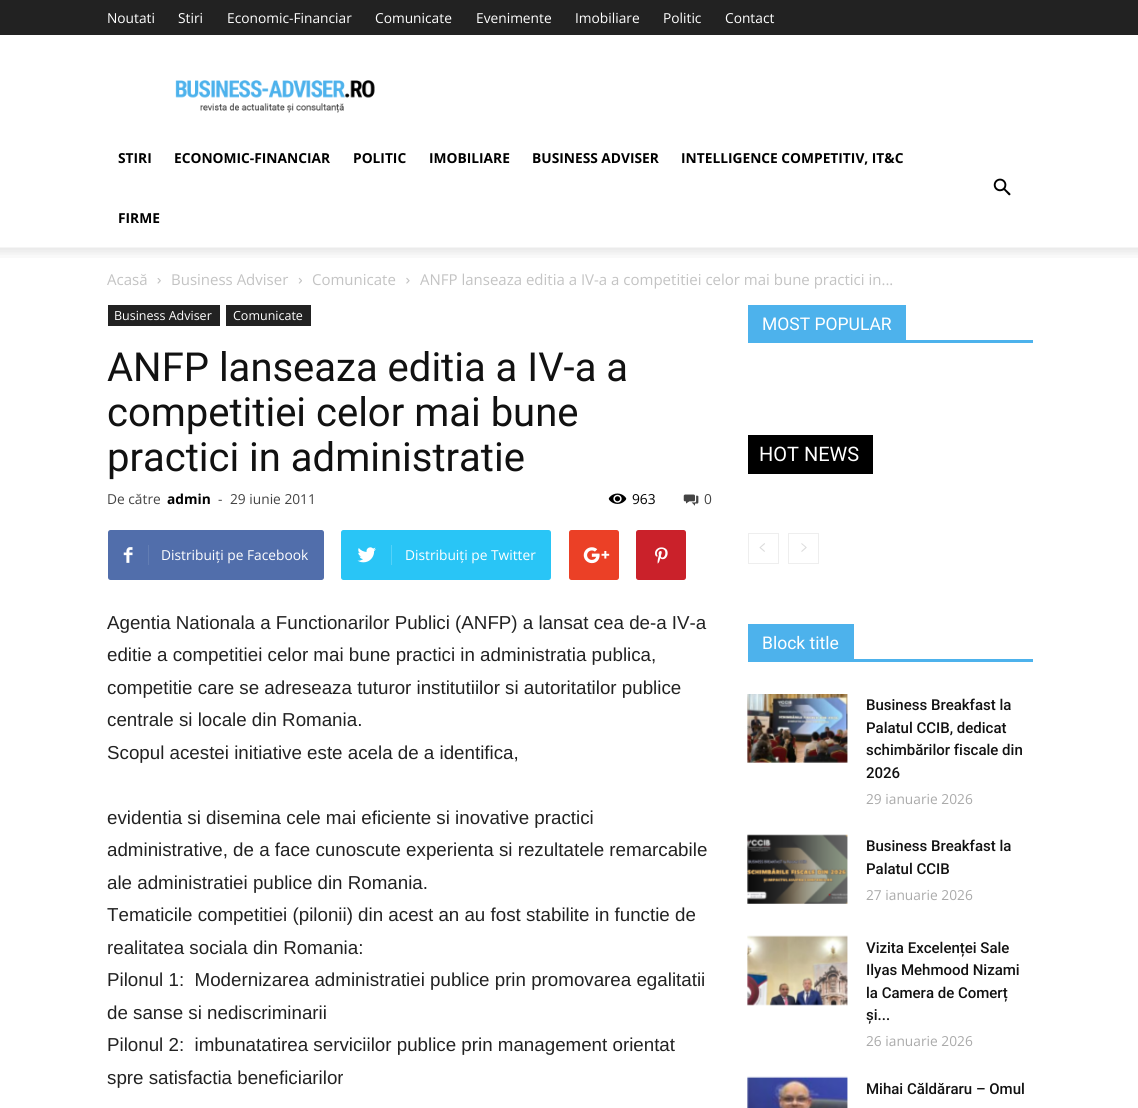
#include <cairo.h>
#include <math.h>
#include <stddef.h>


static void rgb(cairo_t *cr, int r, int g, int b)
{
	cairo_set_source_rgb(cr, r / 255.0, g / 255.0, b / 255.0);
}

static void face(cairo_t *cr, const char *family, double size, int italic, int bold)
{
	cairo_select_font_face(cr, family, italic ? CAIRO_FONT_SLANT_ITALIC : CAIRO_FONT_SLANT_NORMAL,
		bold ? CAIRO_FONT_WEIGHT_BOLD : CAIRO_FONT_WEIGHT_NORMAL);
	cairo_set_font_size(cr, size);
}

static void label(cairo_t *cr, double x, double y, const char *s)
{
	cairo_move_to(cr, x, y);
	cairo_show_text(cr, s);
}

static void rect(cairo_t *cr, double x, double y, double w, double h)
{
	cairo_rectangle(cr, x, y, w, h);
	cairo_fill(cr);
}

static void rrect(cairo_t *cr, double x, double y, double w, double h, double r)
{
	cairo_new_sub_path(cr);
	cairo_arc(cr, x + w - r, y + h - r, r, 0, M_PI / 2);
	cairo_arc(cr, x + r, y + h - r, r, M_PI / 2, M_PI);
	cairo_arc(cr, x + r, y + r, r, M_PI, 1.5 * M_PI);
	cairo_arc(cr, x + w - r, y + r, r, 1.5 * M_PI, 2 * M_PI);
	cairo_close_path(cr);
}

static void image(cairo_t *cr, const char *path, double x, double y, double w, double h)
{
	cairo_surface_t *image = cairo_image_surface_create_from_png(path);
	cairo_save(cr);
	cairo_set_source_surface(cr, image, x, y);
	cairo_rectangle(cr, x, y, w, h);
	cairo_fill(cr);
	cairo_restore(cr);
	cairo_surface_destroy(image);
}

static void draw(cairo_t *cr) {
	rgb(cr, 255, 255, 255);
	cairo_paint(cr);
	rgb(cr, 34, 34, 34);
	rect(cr, 0, 0, 1138, 35);
	face(cr, "Open Sans", 13.75, 0, 0);
	rgb(cr, 255, 255, 255);
	label(cr, 107, 23, "Noutati");
	label(cr, 178, 23, "Stiri");
	label(cr, 227, 23, "Economic-Financiar");
	label(cr, 375, 23, "Comunicate");
	label(cr, 476, 23, "Evenimente");
	label(cr, 575, 23, "Imobiliare");
	label(cr, 663, 23, "Politic");
	label(cr, 725, 23, "Contact");
	image(cr, "image0.png", 175, 80, 200, 33);
	face(cr, "Open Sans", 13.75, 0, 1);
	rgb(cr, 0, 0, 0);
	label(cr, 118, 163, "STIRI");
	label(cr, 174, 163, "ECONOMIC-FINANCIAR");
	label(cr, 353, 163, "POLITIC");
	label(cr, 429, 163, "IMOBILIARE");
	label(cr, 532, 163, "BUSINESS ADVISER");
	label(cr, 681, 163, "INTELLIGENCE COMPETITIV, IT&C");
	label(cr, 118, 223, "FIRME");
	image(cr, "image1.png", 993, 178, 18, 18);
	image(cr, "image2.png", 0, 247, 1138, 11);
	face(cr, "Open Sans", 15, 0, 0);
	rgb(cr, 195, 195, 195);
	label(cr, 107, 285, "Acasă");
	image(cr, "image3.png", 157, 278, 4, 6);
	label(cr, 171, 285, "Business Adviser");
	image(cr, "image4.png", 298, 277, 4, 7);
	label(cr, 312, 285, "Comunicate");
	image(cr, "image5.png", 406, 277, 4, 7);
	label(cr, 420, 285, "ANFP lanseaza editia a IV-a a competitiei celor mai bune practici in...");
	rgb(cr, 34, 34, 34);
	rect(cr, 108, 305, 112, 21);
	face(cr, "Open Sans", 12.5, 0, 0);
	rgb(cr, 255, 255, 255);
	label(cr, 114, 320, "Business Adviser");
	rgb(cr, 34, 34, 34);
	rect(cr, 226, 305, 85, 21);
	rgb(cr, 255, 255, 255);
	label(cr, 233, 320, "Comunicate");
	face(cr, "Roboto", 40, 0, 0);
	rgb(cr, 17, 17, 17);
	label(cr, 107, 381, "ANFP lanseaza editia a IV-a a");
	label(cr, 107, 426, "competitiei celor mai bune");
	label(cr, 107, 471, "practici in administratie");
	face(cr, "Open Sans", 13.75, 0, 0);
	rgb(cr, 68, 68, 68);
	label(cr, 107, 504, "De către");
	face(cr, "Open Sans", 13.75, 0, 1);
	rgb(cr, 0, 0, 0);
	label(cr, 167, 504, "admin");
	face(cr, "Open Sans", 13.75, 0, 0);
	rgb(cr, 68, 68, 68);
	label(cr, 218, 504, "-");
	label(cr, 230, 504, "29 iunie 2011");
	image(cr, "image6.png", 608, 493, 19, 11);
	rgb(cr, 0, 0, 0);
	label(cr, 632, 504, "963");
	image(cr, "image7.png", 683, 494, 16, 12);
	rgb(cr, 68, 68, 68);
	label(cr, 704, 504, "0");
	rgb(cr, 81, 110, 171);
	rrect(cr, 108, 530, 216, 50, 2.5);
	cairo_fill(cr);
	image(cr, "image8.png", 123, 547, 10, 16);
	rgb(cr, 98, 125, 179);
	rect(cr, 148, 545, 1, 20);
	rgb(cr, 255, 255, 255);
	label(cr, 161, 560, "Distribuiți pe Facebook");
	rgb(cr, 41, 197, 246);
	rrect(cr, 341, 530, 210, 50, 2.5);
	cairo_fill(cr);
	image(cr, "image9.png", 357, 547, 19, 16);
	rgb(cr, 84, 209, 248);
	rect(cr, 391, 545, 1, 20);
	rgb(cr, 255, 255, 255);
	label(cr, 405, 560, "Distribuiți pe Twitter");
	rgb(cr, 235, 64, 38);
	rrect(cr, 569, 530, 50, 50, 2.5);
	cairo_fill(cr);
	image(cr, "image10.png", 583, 547, 27, 17);
	rgb(cr, 202, 33, 42);
	rrect(cr, 636, 530, 50, 50, 2.5);
	cairo_fill(cr);
	image(cr, "image11.png", 655, 547, 13, 17);
	face(cr, "Liberation Sans", 18.75, 0, 0);
	rgb(cr, 34, 34, 34);
	label(cr, 107, 629, "Agentia Nationala a Functionarilor Publici (ANFP) a lansat cea de-a IV-a");
	label(cr, 107, 661, "editie a competitiei celor mai bune practici in administratia publica,");
	label(cr, 107, 694, "competitie care se adreseaza tuturor institutiilor si autoritatilor publice");
	label(cr, 107, 726, "centrale si locale din Romania.");
	label(cr, 107, 759, "Scopul acestei initiative este acela de a identifica,");
	label(cr, 107, 824, "evidentia si disemina cele mai eficiente si inovative practici");
	label(cr, 107, 856, "administrative, de a face cunoscute experienta si rezultatele remarcabile");
	label(cr, 107, 889, "ale administratiei publice din Romania.");
	label(cr, 107, 921, "Tematicile competitiei (pilonii) din acest an au fost stabilite in functie de");
	label(cr, 107, 954, "realitatea sociala din Romania:");
	label(cr, 107, 986, "Pilonul 1:  Modernizarea administratiei publice prin promovarea egalitatii");
	label(cr, 107, 1019, "de sanse si nediscriminarii");
	label(cr, 107, 1051, "Pilonul 2:  imbunatatirea serviciilor publice prin management orientat");
	label(cr, 107, 1084, "spre satisfactia beneficiarilor");
	rgb(cr, 77, 178, 236);
	rect(cr, 748, 340, 285, 3);
	rect(cr, 748, 305, 158, 35);
	face(cr, "Roboto", 17.5, 0, 0);
	rgb(cr, 255, 255, 255);
	label(cr, 762, 330, "MOST POPULAR");
	rgb(cr, 0, 0, 0);
	rect(cr, 748, 435, 125, 39);
	face(cr, "Roboto", 20, 0, 0);
	rgb(cr, 255, 255, 255);
	label(cr, 759, 461, "HOT NEWS");
	cairo_rectangle(cr, 748.5, 533.5, 30, 30);
	rgb(cr, 238, 238, 238);
	cairo_set_line_width(cr, 1);
	cairo_stroke(cr);
	image(cr, "image12.png", 759, 543, 6, 9);
	cairo_rectangle(cr, 788.5, 533.5, 30, 30);
	cairo_stroke(cr);
	image(cr, "image13.png", 801, 543, 6, 9);
	rgb(cr, 77, 178, 236);
	rect(cr, 748, 659, 285, 3);
	rect(cr, 748, 624, 106, 35);
	face(cr, "Roboto", 17.5, 0, 0);
	rgb(cr, 255, 255, 255);
	label(cr, 762, 649, "Block title");
	image(cr, "image14.png", 747, 694, 101, 69);
	face(cr, "Roboto Medium", 15, 0, 0);
	rgb(cr, 17, 17, 17);
	label(cr, 866, 710, "Business Breakfast la");
	label(cr, 866, 733, "Palatul CCIB, dedicat");
	label(cr, 866, 755, "schimbărilor fiscale din");
	label(cr, 866, 778, "2026");
	face(cr, "Open Sans", 13.75, 0, 0);
	rgb(cr, 170, 170, 170);
	label(cr, 866, 804, "29 ianuarie 2026");
	image(cr, "image15.png", 747, 834, 101, 70);
	face(cr, "Roboto Medium", 15, 0, 0);
	rgb(cr, 17, 17, 17);
	label(cr, 866, 851, "Business Breakfast la");
	label(cr, 866, 874, "Palatul CCIB");
	face(cr, "Open Sans", 13.75, 0, 0);
	rgb(cr, 170, 170, 170);
	label(cr, 866, 900, "27 ianuarie 2026");
	image(cr, "image16.png", 747, 935, 101, 71);
	face(cr, "Roboto Medium", 15, 0, 0);
	rgb(cr, 17, 17, 17);
	label(cr, 866, 953, "Vizita Excelenței Sale");
	label(cr, 866, 975, "Ilyas Mehmood Nizami");
	label(cr, 866, 998, "la Camera de Comerț");
	label(cr, 866, 1020, "și...");
	face(cr, "Open Sans", 13.75, 0, 0);
	rgb(cr, 170, 170, 170);
	label(cr, 866, 1046, "26 ianuarie 2026");
	image(cr, "image17.png", 747, 1076, 101, 32);
	face(cr, "Roboto Medium", 15, 0, 0);
	rgb(cr, 17, 17, 17);
	label(cr, 866, 1094, "Mihai Căldăraru – Omul");
}

int main(void) {
	cairo_surface_t *surface = cairo_image_surface_create(CAIRO_FORMAT_RGB24, 1138, 1108);
	cairo_t *cr = cairo_create(surface);
	cairo_font_options_t *options = cairo_font_options_create();
	cairo_font_options_set_hint_metrics(options, CAIRO_HINT_METRICS_OFF);
	cairo_font_options_set_hint_style(options, CAIRO_HINT_STYLE_NONE);
	cairo_set_font_options(cr, options);
	cairo_set_miter_limit(cr, 4);
	draw(cr);
	cairo_surface_write_to_png(surface, "render.png");
	cairo_font_options_destroy(options);
	cairo_destroy(cr);
	cairo_surface_destroy(surface);
	return 0;
}
